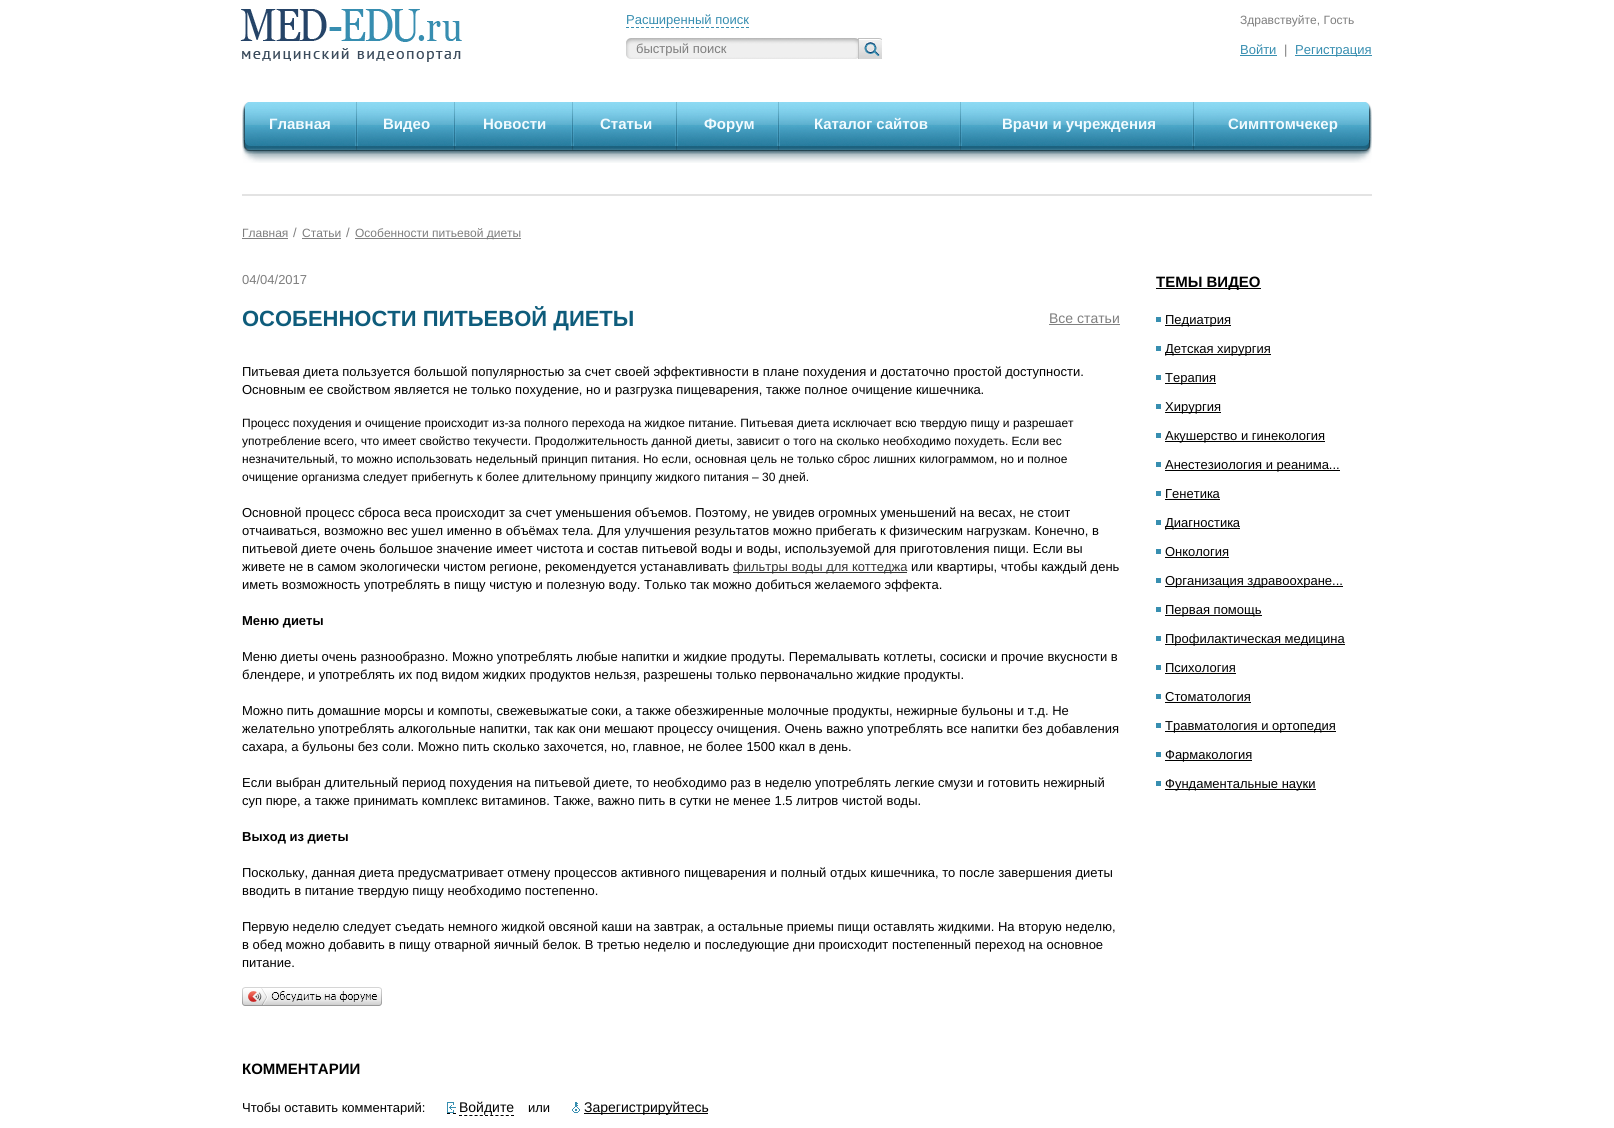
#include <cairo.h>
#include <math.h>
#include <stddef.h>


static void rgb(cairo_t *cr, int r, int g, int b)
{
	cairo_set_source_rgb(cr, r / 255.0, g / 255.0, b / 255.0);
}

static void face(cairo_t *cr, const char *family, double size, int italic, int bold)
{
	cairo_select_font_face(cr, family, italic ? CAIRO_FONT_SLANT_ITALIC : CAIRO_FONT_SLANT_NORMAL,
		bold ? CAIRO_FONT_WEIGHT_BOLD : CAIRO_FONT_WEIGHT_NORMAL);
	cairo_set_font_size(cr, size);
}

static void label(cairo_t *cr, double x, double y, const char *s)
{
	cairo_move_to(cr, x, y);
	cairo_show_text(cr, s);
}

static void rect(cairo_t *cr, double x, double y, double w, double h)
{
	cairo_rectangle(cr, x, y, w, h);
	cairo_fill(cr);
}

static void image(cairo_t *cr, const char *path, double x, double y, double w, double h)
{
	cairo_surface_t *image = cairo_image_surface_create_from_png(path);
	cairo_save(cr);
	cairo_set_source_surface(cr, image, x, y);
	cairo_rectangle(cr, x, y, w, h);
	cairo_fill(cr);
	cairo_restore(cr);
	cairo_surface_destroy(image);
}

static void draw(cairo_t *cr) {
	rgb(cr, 255, 255, 255);
	cairo_paint(cr);
	image(cr, "image0.png", 240, 9, 222, 53);
	face(cr, "Liberation Sans", 13, 0, 0);
	rgb(cr, 55, 142, 176);
	label(cr, 626, 24, "Расширенный поиск");
	cairo_new_path(cr);
	cairo_move_to(cr, 626, 27.5);
	cairo_line_to(cr, 749, 27.5);
	cairo_set_line_width(cr, 1);
	cairo_set_dash(cr, (double[]){3, 2}, 2, 0);
	cairo_stroke(cr);
	image(cr, "image1.png", 626, 38, 8, 21);
	image(cr, "image2.png", 634, 38, 218, 21);
	rgb(cr, 126, 126, 126);
	label(cr, 636, 53, "быстрый поиск");
	image(cr, "image3.png", 852, 38, 6, 21);
	image(cr, "image4.png", 858, 38, 24, 21);
	face(cr, "Liberation Sans", 12, 0, 0);
	label(cr, 1240, 24, "Здравствуйте, Гость");
	face(cr, "Liberation Sans", 13, 0, 0);
	rgb(cr, 55, 142, 176);
	label(cr, 1240, 54, "Войти");
	rect(cr, 1240, 55, 37, 1);
	rgb(cr, 126, 126, 126);
	label(cr, 1284, 54, "|");
	rgb(cr, 55, 142, 176);
	rect(cr, 1295, 55, 77, 1);
	label(cr, 1295, 54, "Регистрация");
	image(cr, "image5.png", 261, 102, 1092, 61);
	image(cr, "image6.png", 242, 102, 19, 61);
	image(cr, "image7.png", 355, 102, 3, 48);
	face(cr, "Liberation Sans", 15, 0, 1);
	rgb(cr, 241, 251, 255);
	label(cr, 269, 129, "Главная");
	image(cr, "image7.png", 453, 102, 3, 48);
	label(cr, 383, 129, "Видео");
	image(cr, "image7.png", 571, 102, 3, 48);
	label(cr, 483, 129, "Новости");
	image(cr, "image7.png", 675, 102, 3, 48);
	label(cr, 600, 129, "Статьи");
	image(cr, "image7.png", 777, 102, 3, 48);
	label(cr, 704, 129, "Форум");
	image(cr, "image7.png", 959, 102, 3, 48);
	label(cr, 814, 129, "Каталог сайтов");
	image(cr, "image7.png", 1192, 102, 3, 48);
	label(cr, 1002, 129, "Врачи и учреждения");
	label(cr, 1228, 129, "Симптомчекер");
	image(cr, "image8.png", 1353, 102, 19, 61);
	rgb(cr, 227, 227, 227);
	rect(cr, 242, 194, 1130, 2);
	face(cr, "Liberation Sans", 12, 0, 0);
	rgb(cr, 126, 126, 126);
	label(cr, 242, 237, "Главная");
	rgb(cr, 128, 128, 128);
	rect(cr, 242, 238, 46, 1);
	face(cr, "Liberation Sans", 13, 0, 0);
	rgb(cr, 126, 126, 126);
	label(cr, 293, 237, "/");
	face(cr, "Liberation Sans", 12, 0, 0);
	label(cr, 302, 237, "Статьи");
	rgb(cr, 128, 128, 128);
	rect(cr, 302, 238, 39, 1);
	face(cr, "Liberation Sans", 13, 0, 0);
	rgb(cr, 126, 126, 126);
	label(cr, 346, 237, "/");
	rgb(cr, 128, 128, 128);
	rect(cr, 355, 238, 166, 1);
	face(cr, "Liberation Sans", 12, 0, 0);
	rgb(cr, 126, 126, 126);
	label(cr, 355, 237, "Особенности питьевой диеты");
	face(cr, "Liberation Sans", 13, 0, 0);
	label(cr, 242, 284, "04/04/2017");
	face(cr, "Liberation Sans", 22, 0, 1);
	rgb(cr, 14, 92, 123);
	label(cr, 242, 326, "ОСОБЕННОСТИ ПИТЬЕВОЙ ДИЕТЫ");
	face(cr, "Liberation Sans", 14, 0, 0);
	rgb(cr, 126, 126, 126);
	label(cr, 1049, 323, "Все статьи");
	rgb(cr, 128, 128, 128);
	rect(cr, 1049, 324, 71, 1);
	face(cr, "Liberation Sans", 13, 0, 0);
	rgb(cr, 0, 0, 0);
	label(cr, 242, 376, "Питьевая диета пользуется большой популярностью за счет своей эффективности в плане похудения и достаточно простой доступности.");
	label(cr, 242, 394, "Основным ее свойством является не только похудение, но и разгрузка пищеварения, также полное очищение кишечника.");
	face(cr, "Liberation Sans", 12, 0, 0);
	label(cr, 242, 427, "Процесс похудения и очищение происходит из-за полного перехода на жидкое питание. Питьевая диета исключает всю твердую пищу и разрешает");
	label(cr, 242, 445, "употребление всего, что имеет свойство текучести. Продолжительность данной диеты, зависит о того на сколько необходимо похудеть. Если вес");
	label(cr, 242, 463, "незначительный, то можно использовать недельный принцип питания. Но если, основная цель не только сброс лишних килограммом, но и полное");
	label(cr, 242, 481, "очищение организма следует прибегнуть к более длительному принципу жидкого питания – 30 дней.");
	face(cr, "Liberation Sans", 13, 0, 0);
	label(cr, 242, 517, "Основной процесс сброса веса происходит за счет уменьшения объемов. Поэтому, не увидев огромных уменьшений на весах, не стоит");
	label(cr, 242, 535, "отчаиваться, возможно вес ушел именно в объёмах тела. Для улучшения результатов можно прибегать к физическим нагрузкам. Конечно, в");
	label(cr, 242, 553, "питьевой диете очень большое значение имеет чистота и состав питьевой воды и воды, используемой для приготовления пищи. Если вы");
	label(cr, 242, 571, "живете не в самом экологически чистом регионе, рекомендуется устанавливать");
	rgb(cr, 51, 51, 51);
	rect(cr, 733, 572, 174, 1);
	label(cr, 733, 571, "фильтры воды для коттеджа");
	rgb(cr, 0, 0, 0);
	label(cr, 911, 571, "или квартиры, чтобы каждый день");
	label(cr, 242, 589, "иметь возможность употреблять в пищу чистую и полезную воду. Только так можно добиться желаемого эффекта.");
	face(cr, "Liberation Sans", 13, 0, 1);
	label(cr, 242, 625, "Меню диеты");
	face(cr, "Liberation Sans", 13, 0, 0);
	label(cr, 242, 661, "Меню диеты очень разнообразно. Можно употреблять любые напитки и жидкие продуты. Перемалывать котлеты, сосиски и прочие вкусности в");
	label(cr, 242, 679, "блендере, и употреблять их под видом жидких продуктов нельзя, разрешены только первоначально жидкие продукты.");
	label(cr, 242, 715, "Можно пить домашние морсы и компоты, свежевыжатые соки, а также обезжиренные молочные продукты, нежирные бульоны и т.д. Не");
	label(cr, 242, 733, "желательно употреблять алкогольные напитки, так как они мешают процессу очищения. Очень важно употреблять все напитки без добавления");
	label(cr, 242, 751, "сахара, а бульоны без соли. Можно пить сколько захочется, но, главное, не более 1500 ккал в день.");
	label(cr, 242, 787, "Если выбран длительный период похудения на питьевой диете, то необходимо раз в неделю употреблять легкие смузи и готовить нежирный");
	label(cr, 242, 805, "суп пюре, а также принимать комплекс витаминов. Также, важно пить в сутки не менее 1.5 литров чистой воды.");
	face(cr, "Liberation Sans", 13, 0, 1);
	label(cr, 242, 841, "Выход из диеты");
	face(cr, "Liberation Sans", 13, 0, 0);
	label(cr, 242, 877, "Поскольку, данная диета предусматривает отмену процессов активного пищеварения и полный отдых кишечника, то после завершения диеты");
	label(cr, 242, 895, "вводить в питание твердую пищу необходимо постепенно.");
	label(cr, 242, 931, "Первую неделю следует съедать немного жидкой овсяной каши на завтрак, а остальные приемы пищи оставлять жидкими. На вторую неделю,");
	label(cr, 242, 949, "в обед можно добавить в пищу отварной яичный белок. В третью неделю и последующие дни происходит постепенный переход на основное");
	label(cr, 242, 967, "питание.");
	image(cr, "image9.png", 242, 987, 140, 19);
	face(cr, "Liberation Sans", 15, 0, 1);
	label(cr, 242, 1074, "КОММЕНТАРИИ");
	face(cr, "Liberation Sans", 13, 0, 0);
	label(cr, 242, 1112, "Чтобы оставить комментарий:");
	cairo_new_path(cr);
	cairo_move_to(cr, 447, 1113.5);
	cairo_line_to(cr, 450, 1113.5);
	cairo_move_to(cr, 453, 1113.5);
	cairo_line_to(cr, 456, 1113.5);
	cairo_set_dash(cr, NULL, 0, 0);
	cairo_stroke(cr);
	cairo_new_path(cr);
	cairo_move_to(cr, 459, 1115.5);
	cairo_line_to(cr, 514, 1115.5);
	cairo_set_dash(cr, (double[]){3, 2.2}, 2, 0);
	cairo_stroke(cr);
	image(cr, "image10.png", 447, 1102, 9, 11);
	face(cr, "Liberation Sans", 14, 0, 0);
	label(cr, 459, 1112, "Войдите");
	face(cr, "Liberation Sans", 13, 0, 0);
	label(cr, 528, 1112, "или");
	image(cr, "image11.png", 572, 1102, 8, 11);
	rect(cr, 584, 1113, 124, 1);
	face(cr, "Liberation Sans", 14, 0, 0);
	label(cr, 584, 1112, "Зарегистрируйтесь");
	rect(cr, 1156, 288, 105, 1);
	face(cr, "Liberation Sans", 15, 0, 1);
	label(cr, 1156, 287, "ТЕМЫ ВИДЕО");
	rgb(cr, 55, 142, 176);
	rect(cr, 1156, 317, 5, 5);
	rgb(cr, 0, 0, 0);
	rect(cr, 1165, 325, 66, 1);
	face(cr, "Liberation Sans", 13, 0, 0);
	label(cr, 1165, 324, "Педиатрия");
	rgb(cr, 55, 142, 176);
	rect(cr, 1156, 346, 5, 5);
	rgb(cr, 0, 0, 0);
	rect(cr, 1165, 354, 106, 1);
	label(cr, 1165, 353, "Детская хирургия");
	rgb(cr, 55, 142, 176);
	rect(cr, 1156, 375, 5, 5);
	rgb(cr, 0, 0, 0);
	rect(cr, 1165, 383, 51, 1);
	label(cr, 1165, 382, "Терапия");
	rgb(cr, 55, 142, 176);
	rect(cr, 1156, 404, 5, 5);
	rgb(cr, 0, 0, 0);
	rect(cr, 1165, 412, 56, 1);
	label(cr, 1165, 411, "Хирургия");
	rgb(cr, 55, 142, 176);
	rect(cr, 1156, 433, 5, 5);
	rgb(cr, 0, 0, 0);
	rect(cr, 1165, 441, 160, 1);
	label(cr, 1165, 440, "Акушерство и гинекология");
	rgb(cr, 55, 142, 176);
	rect(cr, 1156, 462, 5, 5);
	rgb(cr, 0, 0, 0);
	rect(cr, 1165, 470, 175, 1);
	label(cr, 1165, 469, "Анестезиология и реанима...");
	rgb(cr, 55, 142, 176);
	rect(cr, 1156, 491, 5, 5);
	rgb(cr, 0, 0, 0);
	label(cr, 1165, 498, "Генетика");
	rect(cr, 1165, 499, 55, 1);
	rgb(cr, 55, 142, 176);
	rect(cr, 1156, 520, 5, 5);
	rgb(cr, 0, 0, 0);
	rect(cr, 1165, 528, 75, 1);
	label(cr, 1165, 527, "Диагностика");
	rgb(cr, 55, 142, 176);
	rect(cr, 1156, 549, 5, 5);
	rgb(cr, 0, 0, 0);
	label(cr, 1165, 556, "Онкология");
	rect(cr, 1165, 557, 64, 1);
	rgb(cr, 55, 142, 176);
	rect(cr, 1156, 578, 5, 5);
	rgb(cr, 0, 0, 0);
	rect(cr, 1165, 586, 178, 1);
	label(cr, 1165, 585, "Организация здравоохране...");
	rgb(cr, 55, 142, 176);
	rect(cr, 1156, 607, 5, 5);
	rgb(cr, 0, 0, 0);
	rect(cr, 1165, 615, 97, 1);
	label(cr, 1165, 614, "Первая помощь");
	rgb(cr, 55, 142, 176);
	rect(cr, 1156, 636, 5, 5);
	rgb(cr, 0, 0, 0);
	rect(cr, 1165, 644, 180, 1);
	label(cr, 1165, 643, "Профилактическая медицина");
	rgb(cr, 55, 142, 176);
	rect(cr, 1156, 665, 5, 5);
	rgb(cr, 0, 0, 0);
	label(cr, 1165, 672, "Психология");
	rect(cr, 1165, 673, 71, 1);
	rgb(cr, 55, 142, 176);
	rect(cr, 1156, 694, 5, 5);
	rgb(cr, 0, 0, 0);
	label(cr, 1165, 701, "Стоматология");
	rect(cr, 1165, 702, 86, 1);
	rgb(cr, 55, 142, 176);
	rect(cr, 1156, 723, 5, 5);
	rgb(cr, 0, 0, 0);
	rect(cr, 1165, 731, 171, 1);
	label(cr, 1165, 730, "Травматология и ортопедия");
	rgb(cr, 55, 142, 176);
	rect(cr, 1156, 752, 5, 5);
	rgb(cr, 0, 0, 0);
	rect(cr, 1165, 760, 87, 1);
	label(cr, 1165, 759, "Фармакология");
	rgb(cr, 55, 142, 176);
	rect(cr, 1156, 781, 5, 5);
	rgb(cr, 0, 0, 0);
	rect(cr, 1165, 789, 151, 1);
	label(cr, 1165, 788, "Фундаментальные науки");
}

int main(void) {
	cairo_surface_t *surface = cairo_image_surface_create(CAIRO_FORMAT_RGB24, 1614, 1128);
	cairo_t *cr = cairo_create(surface);
	cairo_font_options_t *options = cairo_font_options_create();
	cairo_font_options_set_hint_metrics(options, CAIRO_HINT_METRICS_OFF);
	cairo_font_options_set_hint_style(options, CAIRO_HINT_STYLE_NONE);
	cairo_set_font_options(cr, options);
	cairo_set_miter_limit(cr, 4);
	draw(cr);
	cairo_surface_write_to_png(surface, "render.png");
	cairo_font_options_destroy(options);
	cairo_destroy(cr);
	cairo_surface_destroy(surface);
	return 0;
}
